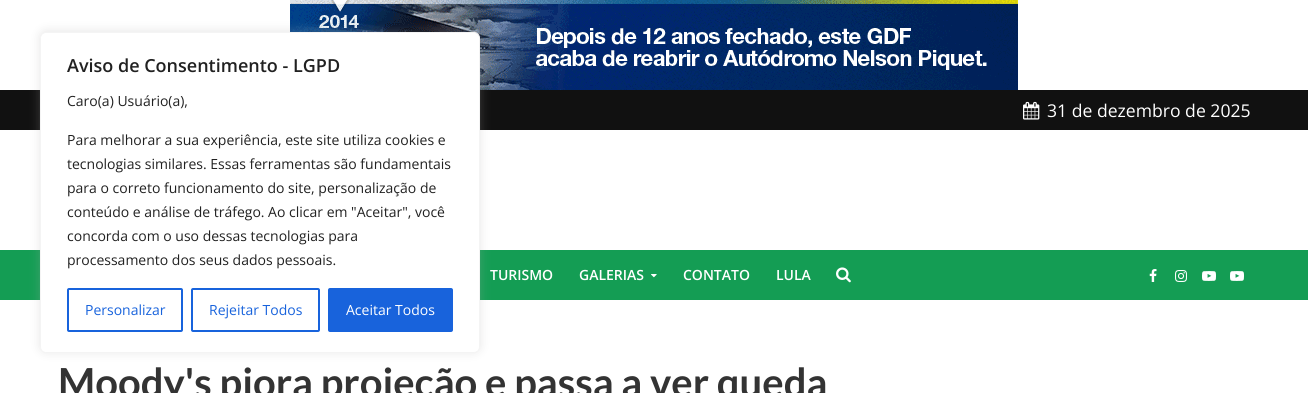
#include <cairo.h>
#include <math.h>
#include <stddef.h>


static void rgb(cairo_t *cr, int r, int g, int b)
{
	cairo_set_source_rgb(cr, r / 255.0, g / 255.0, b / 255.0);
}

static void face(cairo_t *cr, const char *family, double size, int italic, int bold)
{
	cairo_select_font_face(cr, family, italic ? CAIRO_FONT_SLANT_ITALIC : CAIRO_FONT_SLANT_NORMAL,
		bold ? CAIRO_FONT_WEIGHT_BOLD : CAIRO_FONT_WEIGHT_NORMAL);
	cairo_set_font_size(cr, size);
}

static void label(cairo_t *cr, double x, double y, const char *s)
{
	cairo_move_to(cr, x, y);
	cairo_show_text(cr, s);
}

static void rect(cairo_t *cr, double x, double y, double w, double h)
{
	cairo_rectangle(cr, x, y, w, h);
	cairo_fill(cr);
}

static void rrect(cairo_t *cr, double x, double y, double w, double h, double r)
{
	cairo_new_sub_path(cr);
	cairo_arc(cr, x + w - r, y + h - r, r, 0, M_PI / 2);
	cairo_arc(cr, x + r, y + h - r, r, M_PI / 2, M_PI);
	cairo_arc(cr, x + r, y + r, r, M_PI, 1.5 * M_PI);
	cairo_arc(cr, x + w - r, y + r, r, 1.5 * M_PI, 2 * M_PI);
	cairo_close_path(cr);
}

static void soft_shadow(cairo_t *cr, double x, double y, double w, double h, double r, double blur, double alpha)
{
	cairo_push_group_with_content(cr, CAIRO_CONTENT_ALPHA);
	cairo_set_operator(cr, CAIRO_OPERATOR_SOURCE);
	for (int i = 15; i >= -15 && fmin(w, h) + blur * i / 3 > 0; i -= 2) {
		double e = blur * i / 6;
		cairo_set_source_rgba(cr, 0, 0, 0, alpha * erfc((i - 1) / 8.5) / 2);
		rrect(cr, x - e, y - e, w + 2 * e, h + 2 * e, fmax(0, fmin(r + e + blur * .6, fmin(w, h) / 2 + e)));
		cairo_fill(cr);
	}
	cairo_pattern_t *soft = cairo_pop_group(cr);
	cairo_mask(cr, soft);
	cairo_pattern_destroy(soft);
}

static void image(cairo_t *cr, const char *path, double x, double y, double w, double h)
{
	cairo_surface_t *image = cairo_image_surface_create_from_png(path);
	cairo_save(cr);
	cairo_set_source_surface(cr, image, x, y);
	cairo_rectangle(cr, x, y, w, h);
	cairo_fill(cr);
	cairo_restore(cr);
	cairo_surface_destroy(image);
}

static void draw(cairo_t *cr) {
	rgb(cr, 255, 255, 255);
	cairo_paint(cr);
	image(cr, "image0.png", 290, 0, 728, 90);
	rgb(cr, 17, 17, 17);
	rect(cr, 0, 90, 1308, 40);
	rgb(cr, 20, 157, 84);
	rect(cr, 0, 250, 1308, 50);
	rgb(cr, 172, 171, 171);
	soft_shadow(cr, 40, 31, 440, 321, 6, 5, 0.3);
	rgb(cr, 255, 255, 255);
	rrect(cr, 40.5, 32.5, 439, 320, 5.5);
	cairo_fill_preserve(cr);
	rgb(cr, 244, 244, 244);
	cairo_set_line_width(cr, 1);
	cairo_stroke(cr);
	face(cr, "Open Sans SemiBold", 18, 0, 0);
	rgb(cr, 33, 33, 33);
	label(cr, 67, 72, "Aviso de Consentimento - LGPD");
	face(cr, "Open Sans", 14, 0, 0);
	label(cr, 67, 106, "Caro(a) Usuário(a),");
	label(cr, 67, 145, "Para melhorar a sua experiência, este site utiliza cookies e");
	label(cr, 67, 169, "tecnologias similares. Essas ferramentas são fundamentais");
	label(cr, 67, 193, "para o correto funcionamento do site, personalização de");
	label(cr, 67, 217, "conteúdo e análise de tráfego. Ao clicar em \"Aceitar\", você");
	label(cr, 67, 241, "concorda com o uso dessas tecnologias para");
	label(cr, 67, 265, "processamento dos seus dados pessoais.");
	rrect(cr, 68, 289, 114, 42, 1);
	rgb(cr, 24, 99, 220);
	cairo_set_line_width(cr, 2);
	cairo_stroke(cr);
	label(cr, 85, 315, "Personalizar");
	rrect(cr, 192, 289, 127, 42, 1);
	cairo_stroke(cr);
	label(cr, 209, 315, "Rejeitar Todos");
	rrect(cr, 329, 289, 123, 42, 1);
	cairo_fill_preserve(cr);
	cairo_stroke(cr);
	rgb(cr, 255, 255, 255);
	label(cr, 346, 315, "Aceitar Todos");
	image(cr, "image1.png", 1023, 101, 17, 19);
	face(cr, "Open Sans", 17.6, 0, 0);
	label(cr, 1047, 117, "31 de dezembro de 2025");
	face(cr, "Open Sans SemiBold", 14, 0, 0);
	label(cr, 490, 280, "TURISMO");
	label(cr, 579, 280, "GALERIAS");
	image(cr, "image2.png", 651, 274, 6, 4);
	label(cr, 683, 280, "CONTATO");
	label(cr, 776, 280, "LULA");
	image(cr, "image3.png", 836, 267, 15, 16);
	image(cr, "image4.png", 1149, 269, 8, 13);
	image(cr, "image5.png", 1175, 270, 12, 12);
	image(cr, "image6.png", 1202, 271, 14, 10);
	image(cr, "image6.png", 1230, 271, 14, 10);
	face(cr, "Lato", 40, 0, 1);
	rgb(cr, 51, 51, 51);
	label(cr, 58, 397, "Moody's piora projeção e passa a ver queda");
}

int main(void) {
	cairo_surface_t *surface = cairo_image_surface_create(CAIRO_FORMAT_RGB24, 1308, 393);
	cairo_t *cr = cairo_create(surface);
	cairo_font_options_t *options = cairo_font_options_create();
	cairo_font_options_set_hint_metrics(options, CAIRO_HINT_METRICS_OFF);
	cairo_font_options_set_hint_style(options, CAIRO_HINT_STYLE_NONE);
	cairo_set_font_options(cr, options);
	cairo_set_miter_limit(cr, 4);
	draw(cr);
	cairo_surface_write_to_png(surface, "render.png");
	cairo_font_options_destroy(options);
	cairo_destroy(cr);
	cairo_surface_destroy(surface);
	return 0;
}
